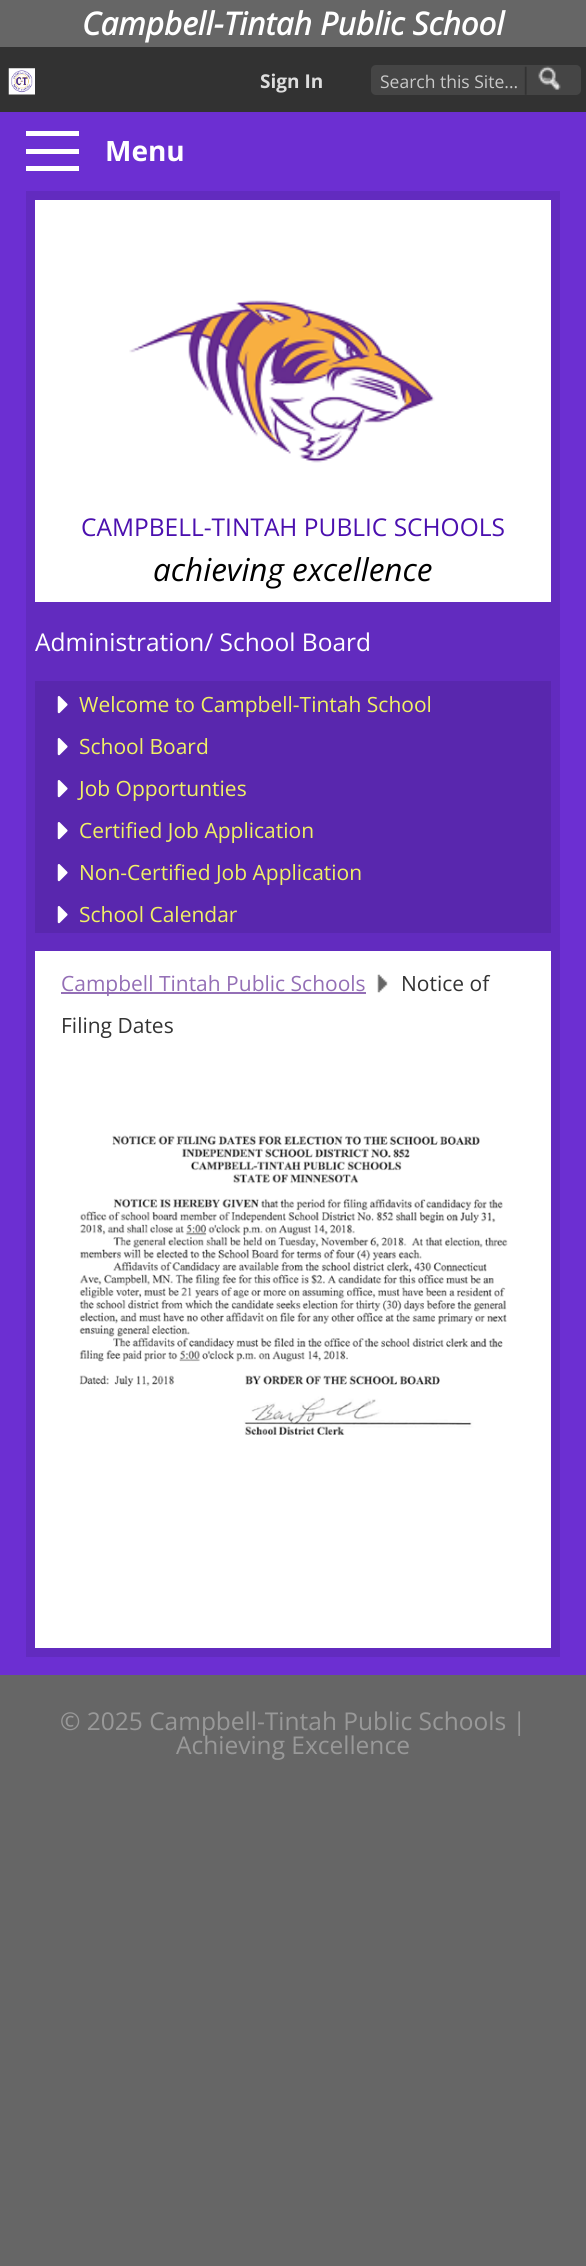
#include <cairo.h>
#include <math.h>
#include <stddef.h>


static void rgb(cairo_t *cr, int r, int g, int b)
{
	cairo_set_source_rgb(cr, r / 255.0, g / 255.0, b / 255.0);
}

static void face(cairo_t *cr, const char *family, double size, int italic, int bold)
{
	cairo_select_font_face(cr, family, italic ? CAIRO_FONT_SLANT_ITALIC : CAIRO_FONT_SLANT_NORMAL,
		bold ? CAIRO_FONT_WEIGHT_BOLD : CAIRO_FONT_WEIGHT_NORMAL);
	cairo_set_font_size(cr, size);
}

static void label(cairo_t *cr, double x, double y, const char *s)
{
	cairo_move_to(cr, x, y);
	cairo_show_text(cr, s);
}

static void rect(cairo_t *cr, double x, double y, double w, double h)
{
	cairo_rectangle(cr, x, y, w, h);
	cairo_fill(cr);
}

static void rrect(cairo_t *cr, double x, double y, double w, double h, double r)
{
	cairo_new_sub_path(cr);
	cairo_arc(cr, x + w - r, y + h - r, r, 0, M_PI / 2);
	cairo_arc(cr, x + r, y + h - r, r, M_PI / 2, M_PI);
	cairo_arc(cr, x + r, y + r, r, M_PI, 1.5 * M_PI);
	cairo_arc(cr, x + w - r, y + r, r, 1.5 * M_PI, 2 * M_PI);
	cairo_close_path(cr);
}

static void image(cairo_t *cr, const char *path, double x, double y, double w, double h)
{
	cairo_surface_t *image = cairo_image_surface_create_from_png(path);
	cairo_save(cr);
	cairo_set_source_surface(cr, image, x, y);
	cairo_rectangle(cr, x, y, w, h);
	cairo_fill(cr);
	cairo_restore(cr);
	cairo_surface_destroy(image);
}

static void draw(cairo_t *cr) {
	rgb(cr, 102, 102, 102);
	cairo_paint(cr);
	face(cr, "Open Sans", 31.5, 1, 1);
	rgb(cr, 255, 255, 255);
	label(cr, 82, 35, "Campbell-Tintah Public School");
	rgb(cr, 50, 50, 50);
	rect(cr, 0, 47, 586, 65);
	image(cr, "image0.png", 8, 68, 27, 27);
	face(cr, "Open Sans", 19, 0, 1);
	rgb(cr, 222, 222, 222);
	label(cr, 260, 88, "Sign In");
	rgb(cr, 69, 69, 69);
	rrect(cr, 371, 65, 210, 30, 5);
	cairo_fill(cr);
	face(cr, "Open Sans", 17.5, 0, 0);
	rgb(cr, 202, 202, 202);
	label(cr, 380, 88, "Search this Site...");
	face(cr, "Open Sans", 28, 0, 0);
	rgb(cr, 51, 51, 51);
	label(cr, 518, 88, "|");
	image(cr, "image1.png", 538, 66, 23, 24);
	rgb(cr, 108, 47, 210);
	rect(cr, 0, 112, 586, 1563);
	rgb(cr, 255, 255, 255);
	rect(cr, 26, 131, 53, 5);
	rect(cr, 26, 149, 53, 5);
	rect(cr, 26, 166, 53, 5);
	face(cr, "Open Sans", 28, 0, 1);
	label(cr, 105, 161, "Menu");
	rgb(cr, 98, 43, 191);
	rect(cr, 26, 191, 534, 751);
	rgb(cr, 255, 255, 255);
	rect(cr, 35, 200, 516, 402);
	image(cr, "image2.png", 129, 300, 306, 163);
	face(cr, "Open Sans", 24.5, 0, 0);
	rgb(cr, 75, 16, 175);
	label(cr, 81, 536, "CAMPBELL-TINTAH PUBLIC SCHOOLS");
	face(cr, "Open Sans", 31.5, 1, 0);
	rgb(cr, 0, 0, 0);
	label(cr, 153, 581, "achieving excellence");
	face(cr, "Open Sans", 24.5, 0, 0);
	rgb(cr, 255, 255, 255);
	label(cr, 35, 651, "Administration/ School Board");
	rgb(cr, 89, 39, 174);
	rect(cr, 35, 681, 516, 252);
	image(cr, "image3.png", 57, 696, 11, 18);
	face(cr, "Open Sans", 21, 0, 0);
	rgb(cr, 241, 241, 100);
	label(cr, 79, 712, "Welcome to Campbell-Tintah School");
	image(cr, "image3.png", 57, 738, 11, 18);
	label(cr, 79, 754, "School Board");
	image(cr, "image3.png", 57, 780, 11, 18);
	label(cr, 79, 796, "Job Opportunties");
	image(cr, "image3.png", 57, 822, 11, 18);
	label(cr, 79, 838, "Certified Job Application");
	image(cr, "image3.png", 57, 864, 11, 18);
	label(cr, 79, 880, "Non-Certified Job Application");
	image(cr, "image3.png", 57, 906, 11, 18);
	label(cr, 79, 922, "School Calendar");
	rgb(cr, 255, 255, 255);
	cairo_rectangle(cr, 30.5, 946.5, 525, 706);
	cairo_fill_preserve(cr);
	rgb(cr, 98, 43, 191);
	cairo_set_line_width(cr, 9);
	cairo_stroke(cr);
	rgb(cr, 148, 111, 182);
	rect(cr, 61, 992, 305, 2);
	label(cr, 61, 991, "Campbell Tintah Public Schools");
	image(cr, "image4.png", 377, 974, 11, 19);
	rgb(cr, 51, 51, 51);
	label(cr, 401, 991, "Notice of");
	label(cr, 61, 1033, "Filing Dates");
	image(cr, "image5.png", 79, 1135, 429, 300);
	face(cr, "Open Sans", 24.5, 0, 0);
	rgb(cr, 153, 153, 153);
	label(cr, 60, 1730, "© 2025 Campbell-Tintah Public Schools |");
	label(cr, 176, 1754, "Achieving Excellence");
}

int main(void) {
	cairo_surface_t *surface = cairo_image_surface_create(CAIRO_FORMAT_RGB24, 586, 2266);
	cairo_t *cr = cairo_create(surface);
	cairo_font_options_t *options = cairo_font_options_create();
	cairo_font_options_set_hint_metrics(options, CAIRO_HINT_METRICS_OFF);
	cairo_font_options_set_hint_style(options, CAIRO_HINT_STYLE_NONE);
	cairo_set_font_options(cr, options);
	cairo_set_miter_limit(cr, 4);
	draw(cr);
	cairo_surface_write_to_png(surface, "render.png");
	cairo_font_options_destroy(options);
	cairo_destroy(cr);
	cairo_surface_destroy(surface);
	return 0;
}
